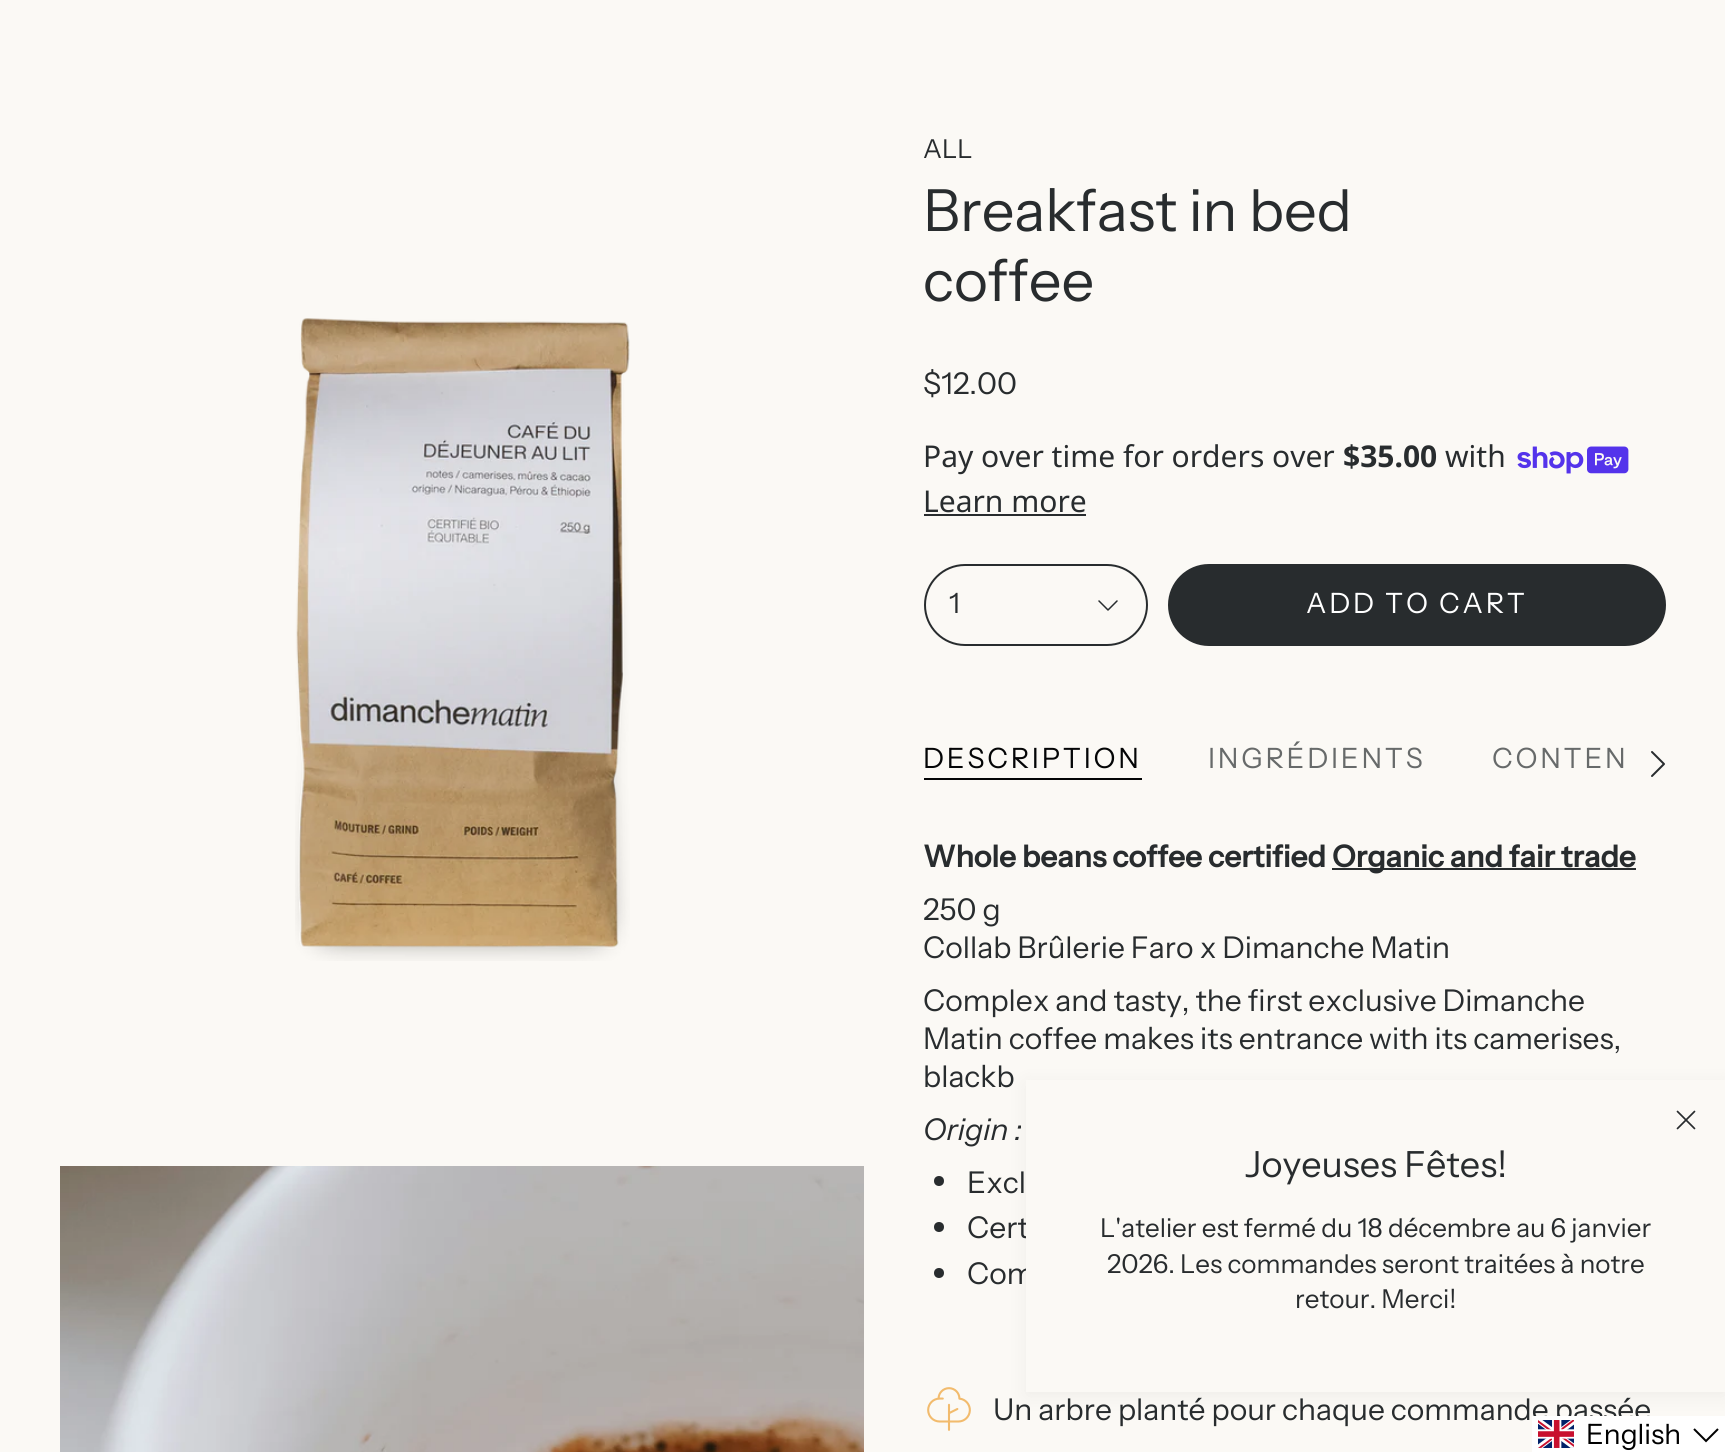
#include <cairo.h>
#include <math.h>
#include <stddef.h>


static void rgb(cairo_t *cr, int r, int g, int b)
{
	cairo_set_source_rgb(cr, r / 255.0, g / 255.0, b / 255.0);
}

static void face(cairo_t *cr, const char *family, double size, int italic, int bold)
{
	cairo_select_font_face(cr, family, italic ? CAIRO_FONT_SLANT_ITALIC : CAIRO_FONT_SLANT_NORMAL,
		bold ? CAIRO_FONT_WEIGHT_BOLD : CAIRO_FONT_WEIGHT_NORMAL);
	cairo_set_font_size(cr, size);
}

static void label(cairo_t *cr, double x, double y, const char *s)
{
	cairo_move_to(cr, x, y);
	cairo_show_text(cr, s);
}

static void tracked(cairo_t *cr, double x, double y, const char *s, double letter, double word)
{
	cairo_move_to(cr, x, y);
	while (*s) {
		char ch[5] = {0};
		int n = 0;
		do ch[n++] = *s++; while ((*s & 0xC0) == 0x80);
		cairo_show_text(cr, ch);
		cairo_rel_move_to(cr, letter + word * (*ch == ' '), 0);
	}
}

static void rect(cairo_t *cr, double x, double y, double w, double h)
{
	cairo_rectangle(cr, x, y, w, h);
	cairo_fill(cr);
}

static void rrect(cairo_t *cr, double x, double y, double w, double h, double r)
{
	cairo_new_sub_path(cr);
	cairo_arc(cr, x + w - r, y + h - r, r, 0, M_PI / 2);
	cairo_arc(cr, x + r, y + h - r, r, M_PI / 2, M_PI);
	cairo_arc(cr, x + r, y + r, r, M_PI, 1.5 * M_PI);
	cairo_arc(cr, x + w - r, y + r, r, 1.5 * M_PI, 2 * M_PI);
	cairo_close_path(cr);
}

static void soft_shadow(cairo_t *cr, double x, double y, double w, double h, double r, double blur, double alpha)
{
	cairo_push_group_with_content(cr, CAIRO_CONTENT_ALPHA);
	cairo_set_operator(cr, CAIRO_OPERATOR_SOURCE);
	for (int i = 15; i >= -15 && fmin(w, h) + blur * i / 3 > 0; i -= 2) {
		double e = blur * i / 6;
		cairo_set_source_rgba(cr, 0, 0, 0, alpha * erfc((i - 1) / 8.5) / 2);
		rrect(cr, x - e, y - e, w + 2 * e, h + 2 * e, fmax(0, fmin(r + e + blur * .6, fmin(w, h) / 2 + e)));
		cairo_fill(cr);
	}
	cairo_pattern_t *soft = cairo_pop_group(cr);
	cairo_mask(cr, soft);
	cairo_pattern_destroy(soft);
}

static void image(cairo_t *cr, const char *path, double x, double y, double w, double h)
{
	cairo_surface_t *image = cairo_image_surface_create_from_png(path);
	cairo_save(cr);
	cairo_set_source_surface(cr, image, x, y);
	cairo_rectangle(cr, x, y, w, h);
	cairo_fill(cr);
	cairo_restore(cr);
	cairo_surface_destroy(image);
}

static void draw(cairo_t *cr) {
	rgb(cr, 251, 249, 245);
	cairo_paint(cr);
	image(cr, "image0.png", 295, 318, 335, 643);
	image(cr, "image1.png", 60, 1166, 804, 286);
	face(cr, "Instrument Sans", 26, 0, 0);
	rgb(cr, 40, 44, 46);
	label(cr, 923, 158, "ALL");
	face(cr, "Instrument Sans", 58, 0, 0);
	label(cr, 923, 231, "Breakfast in bed");
	label(cr, 923, 301, "coffee");
	face(cr, "Instrument Sans", 30, 0, 0);
	label(cr, 923, 394, "$12.00");
	face(cr, "Noto Sans", 30, 0, 0);
	label(cr, 923, 467, "Pay over time for orders over");
	face(cr, "Noto Sans", 30, 0, 1);
	label(cr, 1343, 467, "$35.00");
	face(cr, "Noto Sans", 30, 0, 0);
	label(cr, 1445, 467, "with");
	image(cr, "image2.png", 1517, 446, 112, 28);
	label(cr, 923, 512, "Learn more");
	rect(cr, 924, 514, 162, 2);
	rrect(cr, 925, 565, 222, 80, 40);
	cairo_stroke(cr);
	face(cr, "Instrument Sans", 28, 0, 0);
	label(cr, 949, 613, "1");
	cairo_new_path(cr);
	cairo_move_to(cr, 1099, 601);
	cairo_line_to(cr, 1108, 610);
	cairo_line_to(cr, 1117, 601);
	cairo_set_line_width(cr, 1.5);
	cairo_set_line_cap(cr, CAIRO_LINE_CAP_ROUND);
	cairo_set_line_join(cr, CAIRO_LINE_JOIN_ROUND);
	cairo_stroke(cr);
	rrect(cr, 1169, 565, 496, 80, 40);
	cairo_fill_preserve(cr);
	cairo_set_line_width(cr, 2);
	cairo_set_line_cap(cr, CAIRO_LINE_CAP_BUTT);
	cairo_set_line_join(cr, CAIRO_LINE_JOIN_MITER);
	cairo_stroke(cr);
	rgb(cr, 255, 255, 255);
	tracked(cr, 1306, 613, "ADD TO CART", 2.75, 0);
	rgb(cr, 4, 5, 6);
	tracked(cr, 923, 768, "DESCRIPTION", 2.75, 0);
	rect(cr, 924, 778, 218, 2);
	rgb(cr, 103, 106, 106);
	tracked(cr, 1208, 768, "INGRÉDIENTS", 2.75, 0);
	tracked(cr, 1492, 768, "CONTEN", 2.75, 0);
	cairo_new_path(cr);
	cairo_move_to(cr, 1652, 752);
	cairo_line_to(cr, 1664, 764);
	cairo_line_to(cr, 1652, 776);
	rgb(cr, 40, 44, 46);
	cairo_set_line_cap(cr, CAIRO_LINE_CAP_ROUND);
	cairo_set_line_join(cr, CAIRO_LINE_JOIN_ROUND);
	cairo_stroke(cr);
	face(cr, "Instrument Sans", 30, 0, 1);
	label(cr, 923, 867, "Whole beans coffee certified");
	rect(cr, 1332, 868, 304, 2);
	label(cr, 1332, 867, "Organic and fair trade");
	face(cr, "Instrument Sans", 30, 0, 0);
	label(cr, 923, 920, "250 g");
	label(cr, 923, 958, "Collab Brûlerie Faro x Dimanche Matin");
	label(cr, 923, 1011, "Complex and tasty, the first exclusive Dimanche");
	label(cr, 923, 1049, "Matin coffee makes its entrance with its camerises,");
	label(cr, 923, 1087, "blackb");
	face(cr, "Instrument Sans", 30, 1, 0);
	label(cr, 923, 1140, "Origin :");
	cairo_new_path(cr);
	cairo_arc(cr, 939, 1181, 5, 0, 2 * M_PI);
	cairo_fill(cr);
	face(cr, "Instrument Sans", 30, 0, 0);
	label(cr, 967, 1193, "Excl");
	cairo_new_path(cr);
	cairo_arc(cr, 939, 1227, 5, 0, 2 * M_PI);
	cairo_fill(cr);
	label(cr, 967, 1238, "Cert");
	cairo_new_path(cr);
	cairo_arc(cr, 939, 1273, 5, 0, 2 * M_PI);
	cairo_fill(cr);
	label(cr, 967, 1284, "Com");
	image(cr, "image3.png", 927, 1387, 44, 44);
	label(cr, 993, 1420, "Un arbre planté pour chaque commande passée");
	rgb(cr, 255, 255, 255);
	rect(cr, 1532, 1416, 193, 36);
	image(cr, "image4.png", 1538, 1420, 36, 28);
	rgb(cr, 0, 0, 0);
	soft_shadow(cr, 1026, 1084, 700, 312, 0, 10, 0.05);
	rgb(cr, 251, 249, 245);
	rect(cr, 1026, 1080, 699, 312);
	cairo_new_path(cr);
	cairo_move_to(cr, 1677.5, 1128.5);
	cairo_line_to(cr, 1686, 1120);
	cairo_move_to(cr, 1694.5, 1111.5);
	cairo_line_to(cr, 1686, 1120);
	cairo_move_to(cr, 1686, 1120);
	cairo_line_to(cr, 1677.5, 1111.5);
	cairo_move_to(cr, 1686, 1120);
	cairo_line_to(cr, 1694.5, 1128.5);
	rgb(cr, 40, 44, 46);
	cairo_set_line_width(cr, 1.7);
	cairo_stroke(cr);
	face(cr, "Instrument Sans", 36, 0, 0);
	label(cr, 1245, 1177, "Joyeuses Fêtes!");
	face(cr, "Instrument Sans", 26, 0, 0);
	label(cr, 1100, 1237, "L'atelier est fermé du 18 décembre au 6 janvier");
	label(cr, 1107, 1273, "2026. Les commandes seront traitées à notre");
	label(cr, 1295, 1308, "retour. Merci!");
	face(cr, "Instrument Sans", 28, 0, 0);
	rgb(cr, 0, 0, 0);
	label(cr, 1586, 1444, "English");
	cairo_new_path(cr);
	cairo_move_to(cr, 1694, 1429);
	cairo_line_to(cr, 1706, 1441);
	cairo_line_to(cr, 1718, 1429);
	cairo_set_line_width(cr, 2);
	cairo_set_line_cap(cr, CAIRO_LINE_CAP_BUTT);
	cairo_set_line_join(cr, CAIRO_LINE_JOIN_MITER);
	cairo_stroke(cr);
}

int main(void) {
	cairo_surface_t *surface = cairo_image_surface_create(CAIRO_FORMAT_RGB24, 1725, 1452);
	cairo_t *cr = cairo_create(surface);
	cairo_font_options_t *options = cairo_font_options_create();
	cairo_font_options_set_hint_metrics(options, CAIRO_HINT_METRICS_OFF);
	cairo_font_options_set_hint_style(options, CAIRO_HINT_STYLE_NONE);
	cairo_set_font_options(cr, options);
	cairo_set_miter_limit(cr, 4);
	draw(cr);
	cairo_surface_write_to_png(surface, "render.png");
	cairo_font_options_destroy(options);
	cairo_destroy(cr);
	cairo_surface_destroy(surface);
	return 0;
}
